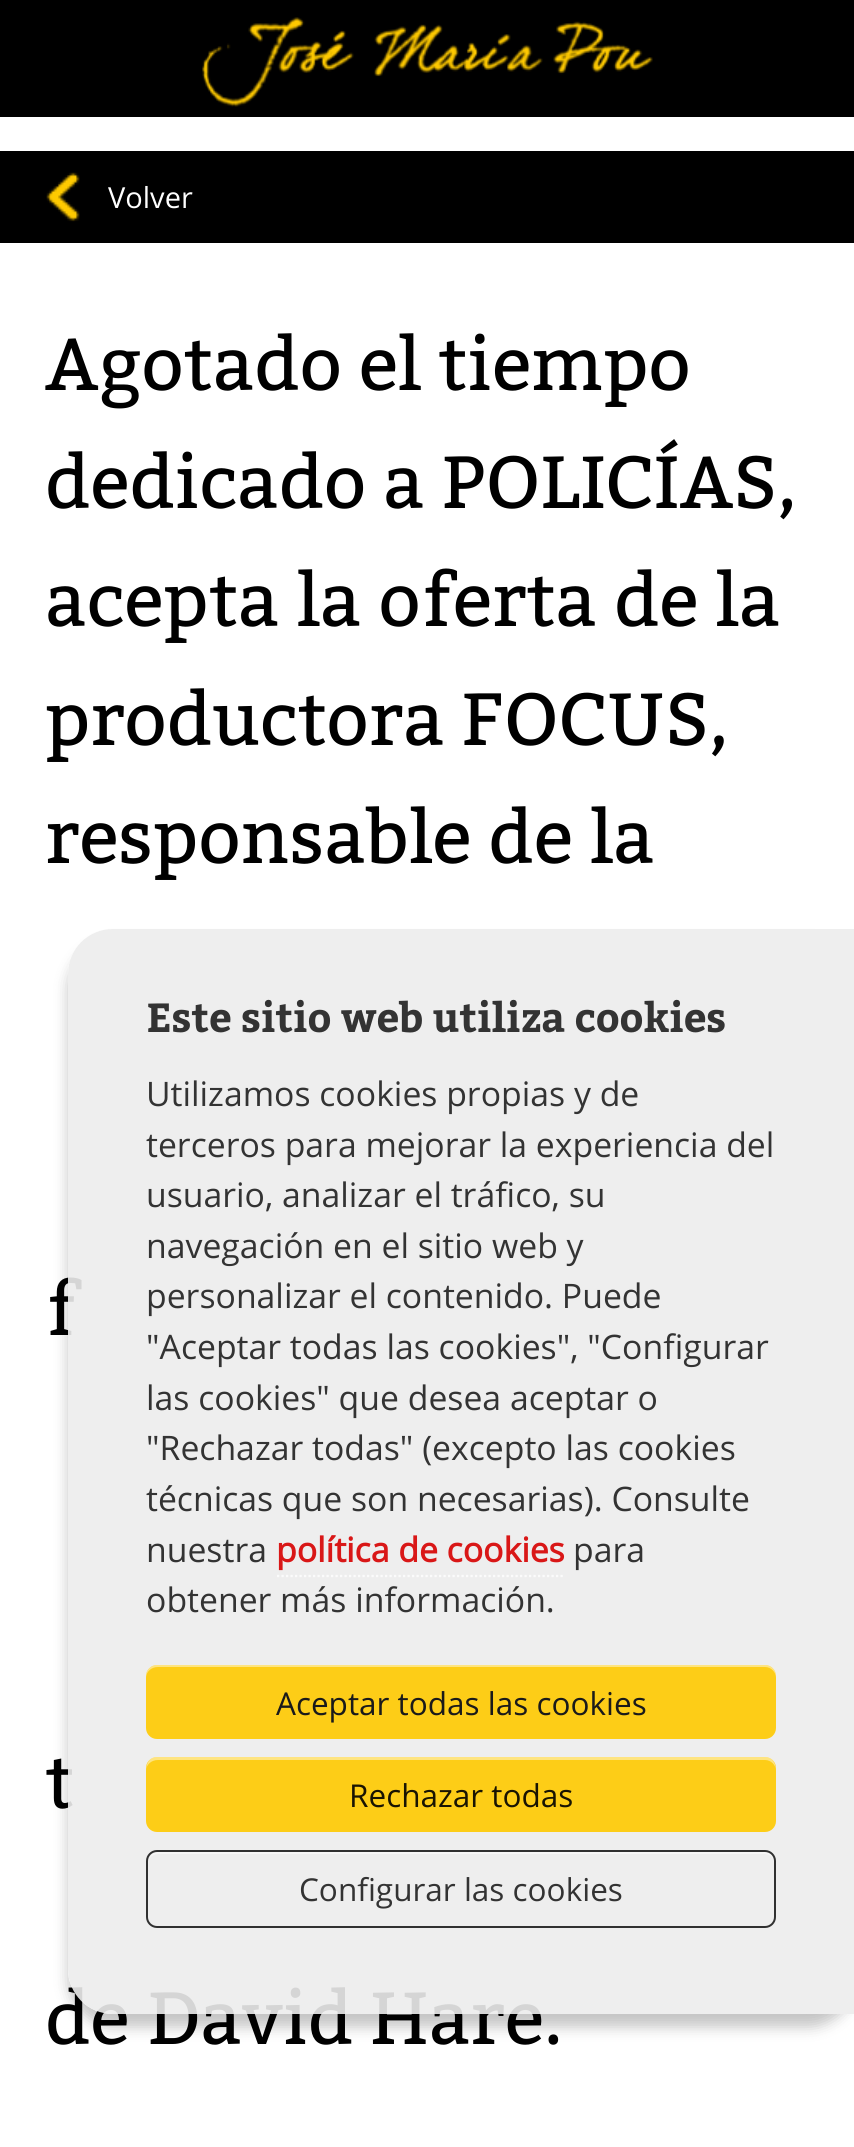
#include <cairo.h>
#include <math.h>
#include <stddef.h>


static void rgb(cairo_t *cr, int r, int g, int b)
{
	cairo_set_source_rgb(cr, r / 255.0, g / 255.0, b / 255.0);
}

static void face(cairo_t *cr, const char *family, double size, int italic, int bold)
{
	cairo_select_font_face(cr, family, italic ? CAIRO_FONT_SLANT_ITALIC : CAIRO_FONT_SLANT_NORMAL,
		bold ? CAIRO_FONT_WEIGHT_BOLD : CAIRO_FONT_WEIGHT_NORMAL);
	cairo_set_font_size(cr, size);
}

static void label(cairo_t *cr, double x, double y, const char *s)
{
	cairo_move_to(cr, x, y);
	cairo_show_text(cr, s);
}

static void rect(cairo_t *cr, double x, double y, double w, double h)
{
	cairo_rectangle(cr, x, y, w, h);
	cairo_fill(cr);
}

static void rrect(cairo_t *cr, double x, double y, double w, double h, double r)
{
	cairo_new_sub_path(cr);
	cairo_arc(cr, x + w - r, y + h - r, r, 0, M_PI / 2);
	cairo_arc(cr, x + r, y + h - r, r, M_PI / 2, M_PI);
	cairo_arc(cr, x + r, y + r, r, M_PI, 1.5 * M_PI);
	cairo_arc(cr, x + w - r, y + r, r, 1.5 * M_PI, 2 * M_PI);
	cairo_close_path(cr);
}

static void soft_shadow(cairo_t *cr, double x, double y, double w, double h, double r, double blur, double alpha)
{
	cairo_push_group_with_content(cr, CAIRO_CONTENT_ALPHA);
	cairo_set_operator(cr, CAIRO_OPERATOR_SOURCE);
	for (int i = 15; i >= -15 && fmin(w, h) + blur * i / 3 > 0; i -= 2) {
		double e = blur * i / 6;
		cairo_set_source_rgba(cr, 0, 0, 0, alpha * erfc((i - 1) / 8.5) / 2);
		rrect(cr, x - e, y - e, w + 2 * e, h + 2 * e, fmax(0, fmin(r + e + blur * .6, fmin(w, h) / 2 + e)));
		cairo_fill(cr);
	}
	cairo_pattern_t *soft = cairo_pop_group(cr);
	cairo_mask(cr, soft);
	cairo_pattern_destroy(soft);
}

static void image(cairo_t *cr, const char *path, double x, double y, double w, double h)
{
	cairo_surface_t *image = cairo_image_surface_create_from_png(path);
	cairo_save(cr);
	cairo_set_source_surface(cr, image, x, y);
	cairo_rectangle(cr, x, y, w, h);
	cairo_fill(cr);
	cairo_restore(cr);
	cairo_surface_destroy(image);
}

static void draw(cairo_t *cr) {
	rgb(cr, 255, 255, 255);
	cairo_paint(cr);
	rgb(cr, 0, 0, 0);
	rect(cr, 0, 0, 854, 117);
	image(cr, "image0.png", 202, 17, 451, 90);
	rect(cr, 0, 151, 854, 92);
	image(cr, "image1.png", 46, 172, 34, 50);
	face(cr, "Open Sans", 29, 0, 0);
	rgb(cr, 255, 255, 255);
	label(cr, 108, 208, "Volver");
	face(cr, "Bitter", 73.75, 0, 0);
	rgb(cr, 0, 0, 0);
	label(cr, 45, 390, "Agotado el tiempo");
	label(cr, 45, 508, "dedicado a POLICÍAS,");
	label(cr, 45, 626, "acepta la oferta de la");
	label(cr, 45, 745, "productora FOCUS,");
	label(cr, 45, 863, "responsable de la");
	label(cr, 45, 1335, "f");
	label(cr, 45, 1808, "t");
	label(cr, 45, 2044, "de David Hare.");
	cairo_save(cr);
	cairo_set_fill_rule(cr, CAIRO_FILL_RULE_EVEN_ODD);
	cairo_new_path(cr);
	cairo_move_to(cr, 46, 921);
	cairo_line_to(cr, 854, 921);
	cairo_line_to(cr, 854, 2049);
	cairo_line_to(cr, 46, 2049);
	cairo_close_path(cr);
	cairo_move_to(cr, 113, 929);
	cairo_line_to(cr, 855, 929);
	cairo_line_to(cr, 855, 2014);
	cairo_line_to(cr, 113, 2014);
	cairo_curve_to(cr, 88, 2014, 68, 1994, 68, 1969);
	cairo_line_to(cr, 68, 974);
	cairo_curve_to(cr, 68, 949, 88, 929, 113, 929);
	cairo_close_path(cr);
	cairo_clip(cr);
	rgb(cr, 0, 0, 0);
	soft_shadow(cr, 68, 943, 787, 1084, 45, 7, 0.23);
	cairo_restore(cr);
	cairo_set_source_rgba(cr, 0.925, 0.925, 0.925, 0.9);
	cairo_new_path(cr);
	cairo_move_to(cr, 113, 929);
	cairo_line_to(cr, 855, 929);
	cairo_line_to(cr, 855, 2014);
	cairo_line_to(cr, 113, 2014);
	cairo_curve_to(cr, 88, 2014, 68, 1994, 68, 1969);
	cairo_line_to(cr, 68, 974);
	cairo_curve_to(cr, 68, 949, 88, 929, 113, 929);
	cairo_close_path(cr);
	cairo_fill(cr);
	face(cr, "Bitter", 40.5, 0, 1);
	rgb(cr, 51, 51, 51);
	label(cr, 146, 1032, "Este sitio web utiliza cookies");
	face(cr, "Open Sans", 33.75, 0, 0);
	label(cr, 146, 1106, "Utilizamos cookies propias y de");
	label(cr, 146, 1157, "terceros para mejorar la experiencia del");
	label(cr, 146, 1207, "usuario, analizar el tráfico, su");
	label(cr, 146, 1258, "navegación en el sitio web y");
	label(cr, 146, 1308, "personalizar el contenido. Puede");
	label(cr, 146, 1359, "\"Aceptar todas las cookies\", \"Configurar");
	label(cr, 146, 1410, "las cookies\" que desea aceptar o");
	label(cr, 146, 1460, "\"Rechazar todas\" (excepto las cookies");
	label(cr, 146, 1511, "técnicas que son necesarias). Consulte");
	label(cr, 146, 1562, "nuestra");
	face(cr, "Open Sans", 33.75, 0, 1);
	rgb(cr, 217, 23, 23);
	label(cr, 276, 1562, "política de cookies");
	cairo_new_path(cr);
	cairo_move_to(cr, 277, 1576);
	cairo_line_to(cr, 565, 1576);
	rgb(cr, 251, 251, 251);
	cairo_set_line_width(cr, 2.2);
	cairo_set_dash(cr, (double[]){2.25, 2.25}, 2, 0);
	cairo_stroke(cr);
	face(cr, "Open Sans", 33.75, 0, 0);
	rgb(cr, 51, 51, 51);
	label(cr, 573, 1562, "para");
	label(cr, 146, 1612, "obtener más información.");
	cairo_set_source_rgba(cr, 1, 0.792, 0, 0.9);
	rrect(cr, 146, 1665, 630, 74, 11);
	cairo_fill(cr);
	cairo_set_source_rgba(cr, 1, 1, 1, 0.45);
	cairo_new_path(cr);
	cairo_move_to(cr, 158, 1667);
	cairo_line_to(cr, 765, 1667);
	cairo_curve_to(cr, 771, 1667, 776, 1672, 776, 1678);
	cairo_line_to(cr, 776, 1676);
	cairo_curve_to(cr, 776, 1670, 771, 1665, 765, 1665);
	cairo_line_to(cr, 157, 1665);
	cairo_curve_to(cr, 151, 1665, 146, 1670, 146, 1676);
	cairo_line_to(cr, 146, 1678);
	cairo_curve_to(cr, 146, 1672, 151, 1667, 158, 1667);
	cairo_close_path(cr);
	cairo_fill(cr);
	face(cr, "Open Sans", 31.5, 0, 0);
	rgb(cr, 26, 26, 26);
	label(cr, 276, 1715, "Aceptar todas las cookies");
	cairo_set_source_rgba(cr, 1, 0.792, 0, 0.9);
	rrect(cr, 146, 1757, 630, 75, 11);
	cairo_fill(cr);
	cairo_set_source_rgba(cr, 1, 1, 1, 0.45);
	cairo_new_path(cr);
	cairo_move_to(cr, 158, 1760);
	cairo_line_to(cr, 765, 1760);
	cairo_curve_to(cr, 771, 1760, 776, 1765, 776, 1771);
	cairo_curve_to(cr, 776, 1764, 773, 1757, 765, 1757);
	cairo_line_to(cr, 157, 1757);
	cairo_curve_to(cr, 149, 1757, 146, 1764, 146, 1771);
	cairo_curve_to(cr, 146, 1765, 151, 1760, 158, 1760);
	cairo_close_path(cr);
	cairo_fill(cr);
	rgb(cr, 25, 20, 2);
	label(cr, 349, 1807, "Rechazar todas");
	rgb(cr, 246, 246, 246);
	cairo_new_path(cr);
	cairo_move_to(cr, 158, 1854);
	cairo_line_to(cr, 765, 1854);
	cairo_curve_to(cr, 770, 1854, 774, 1858, 774, 1863);
	cairo_line_to(cr, 774, 1861);
	cairo_curve_to(cr, 774, 1856, 770, 1852, 765, 1852);
	cairo_line_to(cr, 158, 1852);
	cairo_curve_to(cr, 154, 1852, 150, 1855, 149, 1859);
	cairo_curve_to(cr, 151, 1856, 155, 1854, 158, 1854);
	cairo_close_path(cr);
	cairo_fill(cr);
	rrect(cr, 147, 1851, 628, 76, 10);
	cairo_set_source_rgba(cr, 0.11, 0.11, 0.11, 0.9);
	cairo_set_line_width(cr, 2);
	cairo_set_dash(cr, NULL, 0, 0);
	cairo_stroke(cr);
	rgb(cr, 51, 51, 51);
	label(cr, 299, 1901, "Configurar las cookies");
}

int main(void) {
	cairo_surface_t *surface = cairo_image_surface_create(CAIRO_FORMAT_RGB24, 854, 2147);
	cairo_t *cr = cairo_create(surface);
	cairo_font_options_t *options = cairo_font_options_create();
	cairo_font_options_set_hint_metrics(options, CAIRO_HINT_METRICS_OFF);
	cairo_font_options_set_hint_style(options, CAIRO_HINT_STYLE_NONE);
	cairo_set_font_options(cr, options);
	cairo_set_miter_limit(cr, 4);
	draw(cr);
	cairo_surface_write_to_png(surface, "render.png");
	cairo_font_options_destroy(options);
	cairo_destroy(cr);
	cairo_surface_destroy(surface);
	return 0;
}
